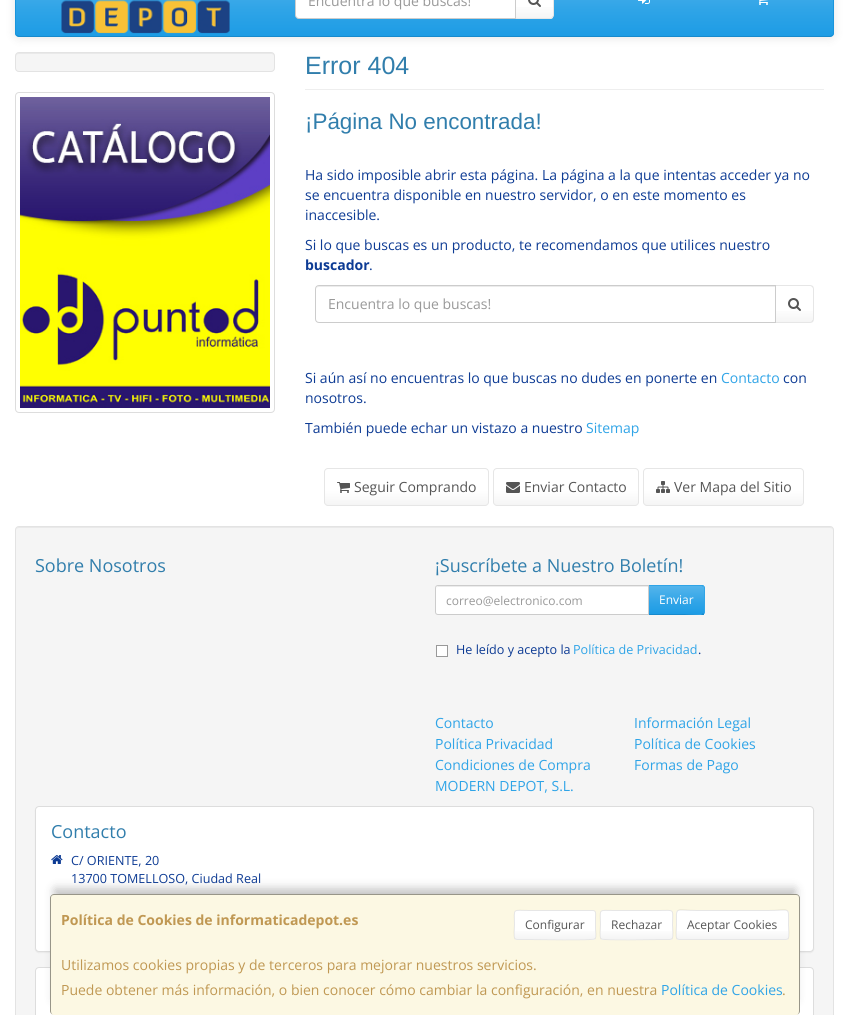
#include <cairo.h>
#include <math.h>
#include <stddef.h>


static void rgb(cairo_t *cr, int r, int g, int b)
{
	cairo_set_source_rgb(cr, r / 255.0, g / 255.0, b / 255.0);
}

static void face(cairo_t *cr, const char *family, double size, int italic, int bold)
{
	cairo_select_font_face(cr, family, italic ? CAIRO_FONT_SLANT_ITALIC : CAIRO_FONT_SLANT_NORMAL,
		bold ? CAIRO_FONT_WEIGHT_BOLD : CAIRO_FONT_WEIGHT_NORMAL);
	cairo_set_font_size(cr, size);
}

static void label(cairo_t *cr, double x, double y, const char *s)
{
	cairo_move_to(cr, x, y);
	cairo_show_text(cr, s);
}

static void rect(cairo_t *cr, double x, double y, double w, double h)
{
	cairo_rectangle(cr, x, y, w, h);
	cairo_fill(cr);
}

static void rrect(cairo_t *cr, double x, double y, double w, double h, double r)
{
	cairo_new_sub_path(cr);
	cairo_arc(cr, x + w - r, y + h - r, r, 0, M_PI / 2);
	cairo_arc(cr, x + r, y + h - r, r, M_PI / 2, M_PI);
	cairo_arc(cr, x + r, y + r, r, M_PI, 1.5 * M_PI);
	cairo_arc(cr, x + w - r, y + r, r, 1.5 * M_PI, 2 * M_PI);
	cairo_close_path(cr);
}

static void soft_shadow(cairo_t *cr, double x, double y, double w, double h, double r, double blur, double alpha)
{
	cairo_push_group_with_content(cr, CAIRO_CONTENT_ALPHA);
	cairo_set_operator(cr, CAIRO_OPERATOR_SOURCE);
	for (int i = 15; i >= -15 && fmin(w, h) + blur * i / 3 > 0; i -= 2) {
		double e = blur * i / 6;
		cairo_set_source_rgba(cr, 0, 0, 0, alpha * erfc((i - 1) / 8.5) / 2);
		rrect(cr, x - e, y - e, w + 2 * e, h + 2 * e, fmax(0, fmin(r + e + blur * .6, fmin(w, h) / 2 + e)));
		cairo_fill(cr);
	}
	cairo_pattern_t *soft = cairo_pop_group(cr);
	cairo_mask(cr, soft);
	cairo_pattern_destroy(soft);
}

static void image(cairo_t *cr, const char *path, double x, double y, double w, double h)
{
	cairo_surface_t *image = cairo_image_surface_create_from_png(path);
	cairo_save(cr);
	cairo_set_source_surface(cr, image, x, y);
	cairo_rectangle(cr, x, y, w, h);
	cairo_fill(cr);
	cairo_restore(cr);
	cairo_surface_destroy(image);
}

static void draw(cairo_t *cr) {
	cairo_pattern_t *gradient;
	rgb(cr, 255, 255, 255);
	cairo_paint(cr);
	rgb(cr, 0, 0, 0);
	soft_shadow(cr, 15, -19, 819, 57, 4, 5, 0.1);
	rgb(cr, 47, 164, 231);
	rrect(cr, 15, -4, 819, 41, 4);
	cairo_fill(cr);
	gradient = cairo_pattern_create_linear(425, -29, 425, 36);
	cairo_pattern_add_color_stop_rgba(gradient, 0, 0.329, 0.706, 0.922, 1);
	cairo_pattern_add_color_stop_rgba(gradient, 0.6, 0.184, 0.643, 0.906, 1);
	cairo_pattern_add_color_stop_rgba(gradient, 1, 0.114, 0.612, 0.898, 1);
	cairo_set_source(cr, gradient);
	cairo_pattern_destroy(gradient);
	rect(cr, 16, 0, 817, 36);
	cairo_new_path(cr);
	cairo_move_to(cr, 832.5, 35.5);
	cairo_line_to(cr, 830, 36.5);
	cairo_line_to(cr, 19, 36.5);
	cairo_line_to(cr, 16.5, 35.5);
	rgb(cr, 23, 138, 204);
	cairo_set_line_width(cr, 1);
	cairo_stroke(cr);
	cairo_new_path(cr);
	cairo_move_to(cr, 16.5, 35.5);
	cairo_curve_to(cr, 16, 35, 15.5, 34, 15.5, 33);
	cairo_line_to(cr, 15.5, -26);
	cairo_curve_to(cr, 15.5, -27, 16, -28, 16.5, -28.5);
	cairo_curve_to(cr, 17, -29, 18, -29.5, 19, -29.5);
	cairo_line_to(cr, 830, -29.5);
	cairo_curve_to(cr, 831, -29.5, 832, -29, 832.5, -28.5);
	cairo_curve_to(cr, 833, -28, 833.5, -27, 833.5, -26);
	cairo_line_to(cr, 833.5, 33);
	cairo_curve_to(cr, 833.5, 34, 833, 35, 832.5, 35.5);
	rgb(cr, 25, 149, 220);
	cairo_stroke(cr);
	image(cr, "image0.png", 61, 0, 169, 34);
	rgb(cr, 255, 255, 255);
	cairo_new_path(cr);
	cairo_move_to(cr, 515, -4);
	cairo_line_to(cr, 550, -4);
	cairo_curve_to(cr, 552, -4, 554, -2, 554, 0);
	cairo_line_to(cr, 554, 15);
	cairo_curve_to(cr, 554, 17, 552, 19, 550, 19);
	cairo_line_to(cr, 515, 19);
	cairo_close_path(cr);
	cairo_fill(cr);
	gradient = cairo_pattern_create_linear(535, -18, 535, 18);
	cairo_pattern_add_color_stop_rgba(gradient, 0, 1, 1, 1, 1);
	cairo_pattern_add_color_stop_rgba(gradient, 0.6, 1, 1, 1, 1);
	cairo_pattern_add_color_stop_rgba(gradient, 1, 0.961, 0.961, 0.961, 1);
	cairo_set_source(cr, gradient);
	cairo_pattern_destroy(gradient);
	rect(cr, 516, 7, 37, 11);
	cairo_set_source_rgba(cr, 0, 0, 0, 0.1);
	cairo_new_path(cr);
	cairo_move_to(cr, 554, 15);
	cairo_line_to(cr, 554, -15);
	cairo_curve_to(cr, 554, -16, 553.5, -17, 553, -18);
	cairo_line_to(cr, 552, -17);
	cairo_curve_to(cr, 552.5, -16.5, 553, -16, 553, -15);
	cairo_line_to(cr, 553, 15);
	cairo_curve_to(cr, 553, 16, 552.5, 16.5, 552, 17);
	cairo_line_to(cr, 553, 18);
	cairo_curve_to(cr, 553.5, 17, 554, 16, 554, 15);
	cairo_close_path(cr);
	cairo_fill(cr);
	rgb(cr, 230, 230, 230);
	cairo_new_path(cr);
	cairo_move_to(cr, 550, 19);
	cairo_curve_to(cr, 551, 19, 552, 18.5, 553, 18);
	cairo_line_to(cr, 552, 17);
	cairo_curve_to(cr, 551.5, 17.5, 551, 18, 550, 18);
	cairo_line_to(cr, 516, 18);
	cairo_line_to(cr, 515, 19);
	cairo_close_path(cr);
	cairo_fill(cr);
	rgb(cr, 255, 255, 255);
	cairo_new_path(cr);
	cairo_move_to(cr, 299, -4.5);
	cairo_line_to(cr, 515.5, -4.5);
	cairo_line_to(cr, 515.5, 18.5);
	cairo_line_to(cr, 299, 18.5);
	cairo_curve_to(cr, 297, 18.5, 295.5, 17, 295.5, 15);
	cairo_line_to(cr, 295.5, -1);
	cairo_curve_to(cr, 295.5, -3, 297, -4.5, 299, -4.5);
	cairo_close_path(cr);
	cairo_fill_preserve(cr);
	rgb(cr, 204, 204, 204);
	cairo_stroke(cr);
	face(cr, "Open Sans", 14, 0, 0);
	rgb(cr, 153, 153, 153);
	label(cr, 308, 6, "Encuentra lo que buscas!");
	image(cr, "image1.png", 528, 0, 13, 7);
	image(cr, "image2.png", 638, 0, 12, 4);
	image(cr, "image3.png", 759, 0, 9, 5);
	rgb(cr, 245, 245, 245);
	rrect(cr, 15, 52, 260, 20, 4);
	cairo_fill(cr);
	rgb(cr, 233, 233, 233);
	cairo_new_path(cr);
	cairo_move_to(cr, 19, 54);
	cairo_line_to(cr, 272, 54);
	cairo_line_to(cr, 274, 55);
	cairo_line_to(cr, 274, 57);
	cairo_line_to(cr, 274, 56);
	cairo_curve_to(cr, 274, 54, 273, 53, 271, 53);
	cairo_line_to(cr, 19, 53);
	cairo_curve_to(cr, 17, 53, 16, 54, 16, 56);
	cairo_line_to(cr, 16, 57);
	cairo_curve_to(cr, 16, 55, 17, 54, 19, 54);
	cairo_close_path(cr);
	cairo_fill(cr);
	rrect(cr, 15.5, 52.5, 259, 19, 3.5);
	rgb(cr, 227, 227, 227);
	cairo_stroke(cr);
	rrect(cr, 15.5, 92.5, 259, 320, 3.5);
	rgb(cr, 221, 221, 221);
	cairo_stroke(cr);
	image(cr, "image4.png", 20, 97, 250, 311);
	rgb(cr, 238, 238, 238);
	rect(cr, 305, 89, 519, 1);
	face(cr, "Liberation Sans", 25, 0, 0);
	rgb(cr, 49, 126, 172);
	label(cr, 305, 74, "Error 404");
	face(cr, "Liberation Sans", 22.4, 0, 0);
	label(cr, 305, 129, "¡Página No encontrada!");
	face(cr, "Open Sans", 14, 0, 0);
	rgb(cr, 13, 59, 148);
	label(cr, 305, 180, "Ha sido imposible abrir esta página. La página a la que intentas acceder ya no");
	label(cr, 305, 200, "se encuentra disponible en nuestro servidor, o en este momento es");
	label(cr, 305, 220, "inaccesible.");
	label(cr, 305, 250, "Si lo que buscas es un producto, te recomendamos que utilices nuestro");
	face(cr, "Open Sans", 14, 0, 1);
	label(cr, 305, 270, "buscador");
	face(cr, "Open Sans", 14, 0, 0);
	label(cr, 369, 270, ".");
	rgb(cr, 230, 230, 230);
	cairo_new_path(cr);
	cairo_move_to(cr, 775, 285);
	cairo_line_to(cr, 776, 286);
	cairo_line_to(cr, 810, 286);
	cairo_curve_to(cr, 811, 286, 811.5, 286.5, 812, 287);
	cairo_line_to(cr, 813, 286);
	cairo_curve_to(cr, 812, 285.5, 811, 285, 810, 285);
	cairo_close_path(cr);
	cairo_fill(cr);
	gradient = cairo_pattern_create_linear(795, 286, 795, 322);
	cairo_pattern_add_color_stop_rgba(gradient, 0, 1, 1, 1, 1);
	cairo_pattern_add_color_stop_rgba(gradient, 0.6, 1, 1, 1, 1);
	cairo_pattern_add_color_stop_rgba(gradient, 1, 0.961, 0.961, 0.961, 1);
	cairo_set_source(cr, gradient);
	cairo_pattern_destroy(gradient);
	rect(cr, 776, 311, 37, 11);
	cairo_set_source_rgba(cr, 0, 0, 0, 0.1);
	cairo_new_path(cr);
	cairo_move_to(cr, 814, 319);
	cairo_line_to(cr, 814, 289);
	cairo_curve_to(cr, 814, 288, 813.5, 287, 813, 286);
	cairo_line_to(cr, 812, 287);
	cairo_curve_to(cr, 812.5, 287.5, 813, 288, 813, 289);
	cairo_line_to(cr, 813, 319);
	cairo_curve_to(cr, 813, 320, 812.5, 320.5, 812, 321);
	cairo_line_to(cr, 813, 322);
	cairo_curve_to(cr, 813.5, 321, 814, 320, 814, 319);
	cairo_close_path(cr);
	cairo_fill(cr);
	rgb(cr, 230, 230, 230);
	cairo_new_path(cr);
	cairo_move_to(cr, 810, 323);
	cairo_curve_to(cr, 811, 323, 812, 322.5, 813, 322);
	cairo_line_to(cr, 812, 321);
	cairo_curve_to(cr, 811.5, 321.5, 811, 322, 810, 322);
	cairo_line_to(cr, 776, 322);
	cairo_line_to(cr, 775, 323);
	cairo_close_path(cr);
	cairo_fill(cr);
	rgb(cr, 255, 255, 255);
	cairo_new_path(cr);
	cairo_move_to(cr, 319, 285);
	cairo_line_to(cr, 776, 285);
	cairo_line_to(cr, 776, 323);
	cairo_line_to(cr, 319, 323);
	cairo_curve_to(cr, 317, 323, 315, 321, 315, 319);
	cairo_line_to(cr, 315, 289);
	cairo_curve_to(cr, 315, 287, 317, 285, 319, 285);
	cairo_close_path(cr);
	cairo_fill(cr);
	rgb(cr, 236, 236, 236);
	cairo_new_path(cr);
	cairo_move_to(cr, 319, 287);
	cairo_line_to(cr, 775, 287);
	cairo_line_to(cr, 775, 286);
	cairo_line_to(cr, 319, 286);
	cairo_curve_to(cr, 317, 286, 316, 288, 316, 290);
	cairo_curve_to(cr, 316, 288, 317, 287, 319, 287);
	cairo_close_path(cr);
	cairo_fill(cr);
	cairo_new_path(cr);
	cairo_move_to(cr, 319, 285.5);
	cairo_line_to(cr, 775.5, 285.5);
	cairo_line_to(cr, 775.5, 322.5);
	cairo_line_to(cr, 319, 322.5);
	cairo_curve_to(cr, 317, 322.5, 315.5, 321, 315.5, 319);
	cairo_line_to(cr, 315.5, 289);
	cairo_curve_to(cr, 315.5, 287, 317, 285.5, 319, 285.5);
	cairo_close_path(cr);
	rgb(cr, 204, 204, 204);
	cairo_stroke(cr);
	rgb(cr, 153, 153, 153);
	label(cr, 328, 309, "Encuentra lo que buscas!");
	image(cr, "image5.png", 788, 298, 13, 13);
	rgb(cr, 13, 59, 148);
	label(cr, 305, 383, "Si aún así no encuentras lo que buscas no dudes en ponerte en");
	rgb(cr, 47, 164, 231);
	label(cr, 721, 383, "Contacto");
	rgb(cr, 13, 59, 148);
	label(cr, 783, 383, "con");
	label(cr, 305, 403, "nosotros.");
	label(cr, 305, 433, "También puede echar un vistazo a nuestro");
	rgb(cr, 47, 164, 231);
	label(cr, 586, 433, "Sitemap");
	cairo_save(cr);
	rrect(cr, 324, 468, 165, 38, 4);
	cairo_clip(cr);
	gradient = cairo_pattern_create_linear(407, 469, 407, 505);
	cairo_pattern_add_color_stop_rgba(gradient, 0, 1, 1, 1, 1);
	cairo_pattern_add_color_stop_rgba(gradient, 0.6, 1, 1, 1, 1);
	cairo_pattern_add_color_stop_rgba(gradient, 1, 0.961, 0.961, 0.961, 1);
	cairo_set_source(cr, gradient);
	cairo_pattern_destroy(gradient);
	rect(cr, 325, 469, 163, 36);
	cairo_restore(cr);
	cairo_new_path(cr);
	cairo_move_to(cr, 487.5, 504.5);
	cairo_curve_to(cr, 487, 505, 486, 505.5, 485, 505.5);
	cairo_line_to(cr, 328, 505.5);
	cairo_curve_to(cr, 327, 505.5, 326, 505, 325.5, 504.5);
	rgb(cr, 230, 230, 230);
	cairo_stroke(cr);
	cairo_new_path(cr);
	cairo_move_to(cr, 325.5, 504.5);
	cairo_curve_to(cr, 325, 504, 324.5, 503, 324.5, 502);
	cairo_line_to(cr, 324.5, 472);
	cairo_curve_to(cr, 324.5, 471, 325, 470, 325.5, 469.5);
	cairo_curve_to(cr, 326, 469, 327, 468.5, 328, 468.5);
	cairo_line_to(cr, 485, 468.5);
	cairo_curve_to(cr, 486, 468.5, 487, 469, 487.5, 469.5);
	cairo_curve_to(cr, 488, 470, 488.5, 471, 488.5, 472);
	cairo_line_to(cr, 488.5, 502);
	cairo_curve_to(cr, 488.5, 503, 488, 504, 487.5, 504.5);
	cairo_stroke(cr);
	image(cr, "image6.png", 337, 482, 13, 11);
	rgb(cr, 85, 85, 85);
	label(cr, 354, 492, "Seguir Comprando");
	cairo_save(cr);
	rrect(cr, 493, 468, 146, 38, 4);
	cairo_clip(cr);
	gradient = cairo_pattern_create_linear(566, 469, 566, 505);
	cairo_pattern_add_color_stop_rgba(gradient, 0, 1, 1, 1, 1);
	cairo_pattern_add_color_stop_rgba(gradient, 0.6, 1, 1, 1, 1);
	cairo_pattern_add_color_stop_rgba(gradient, 1, 0.961, 0.961, 0.961, 1);
	cairo_set_source(cr, gradient);
	cairo_pattern_destroy(gradient);
	rect(cr, 494, 469, 144, 36);
	cairo_restore(cr);
	cairo_new_path(cr);
	cairo_move_to(cr, 637.5, 504.5);
	cairo_curve_to(cr, 637, 505, 636, 505.5, 635, 505.5);
	cairo_line_to(cr, 497, 505.5);
	cairo_curve_to(cr, 496, 505.5, 495, 505, 494.5, 504.5);
	rgb(cr, 230, 230, 230);
	cairo_stroke(cr);
	cairo_new_path(cr);
	cairo_move_to(cr, 494.5, 504.5);
	cairo_curve_to(cr, 494, 504, 493.5, 503, 493.5, 502);
	cairo_line_to(cr, 493.5, 472);
	cairo_curve_to(cr, 493.5, 471, 494, 470, 494.5, 469.5);
	cairo_curve_to(cr, 495, 469, 496, 468.5, 497, 468.5);
	cairo_line_to(cr, 635, 468.5);
	cairo_curve_to(cr, 636, 468.5, 637, 469, 637.5, 469.5);
	cairo_curve_to(cr, 638, 470, 638.5, 471, 638.5, 472);
	cairo_line_to(cr, 638.5, 502);
	cairo_curve_to(cr, 638.5, 503, 638, 504, 637.5, 504.5);
	cairo_stroke(cr);
	image(cr, "image7.png", 506, 482, 14, 11);
	rgb(cr, 85, 85, 85);
	label(cr, 524, 492, "Enviar Contacto");
	cairo_save(cr);
	rrect(cr, 643, 468, 161, 38, 4);
	cairo_clip(cr);
	gradient = cairo_pattern_create_linear(724, 469, 724, 505);
	cairo_pattern_add_color_stop_rgba(gradient, 0, 1, 1, 1, 1);
	cairo_pattern_add_color_stop_rgba(gradient, 0.6, 1, 1, 1, 1);
	cairo_pattern_add_color_stop_rgba(gradient, 1, 0.961, 0.961, 0.961, 1);
	cairo_set_source(cr, gradient);
	cairo_pattern_destroy(gradient);
	rect(cr, 644, 469, 159, 36);
	cairo_restore(cr);
	cairo_new_path(cr);
	cairo_move_to(cr, 802.5, 504.5);
	cairo_curve_to(cr, 802, 505, 801, 505.5, 800, 505.5);
	cairo_line_to(cr, 647, 505.5);
	cairo_curve_to(cr, 646, 505.5, 645, 505, 644.5, 504.5);
	rgb(cr, 230, 230, 230);
	cairo_stroke(cr);
	cairo_new_path(cr);
	cairo_move_to(cr, 644.5, 504.5);
	cairo_curve_to(cr, 644, 504, 643.5, 503, 643.5, 502);
	cairo_line_to(cr, 643.5, 472);
	cairo_curve_to(cr, 643.5, 471, 644, 470, 644.5, 469.5);
	cairo_curve_to(cr, 645, 469, 646, 468.5, 647, 468.5);
	cairo_line_to(cr, 800, 468.5);
	cairo_curve_to(cr, 801, 468.5, 802, 469, 802.5, 469.5);
	cairo_curve_to(cr, 803, 470, 803.5, 471, 803.5, 472);
	cairo_line_to(cr, 803.5, 502);
	cairo_curve_to(cr, 803.5, 503, 803, 504, 802.5, 504.5);
	cairo_stroke(cr);
	image(cr, "image8.png", 656, 481, 14, 12);
	rgb(cr, 85, 85, 85);
	label(cr, 674, 492, "Ver Mapa del Sitio");
	rgb(cr, 245, 245, 245);
	rrect(cr, 15, 526, 819, 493, 4);
	cairo_fill(cr);
	rgb(cr, 233, 233, 233);
	cairo_new_path(cr);
	cairo_move_to(cr, 19, 528);
	cairo_line_to(cr, 830, 528);
	cairo_curve_to(cr, 832, 528, 833, 529, 833, 531);
	cairo_curve_to(cr, 833, 529, 832, 527, 830, 527);
	cairo_line_to(cr, 19, 527);
	cairo_curve_to(cr, 17, 527, 16, 529, 16, 531);
	cairo_curve_to(cr, 16, 529, 17, 528, 19, 528);
	cairo_close_path(cr);
	cairo_fill(cr);
	rrect(cr, 15.5, 526.5, 818, 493, 3.5);
	rgb(cr, 227, 227, 227);
	cairo_stroke(cr);
	face(cr, "Open Sans", 18, 0, 0);
	rgb(cr, 49, 126, 172);
	label(cr, 35, 572, "Sobre Nosotros");
	label(cr, 435, 572, "¡Suscríbete a Nuestro Boletín!");
	rgb(cr, 47, 164, 231);
	cairo_new_path(cr);
	cairo_move_to(cr, 648, 585);
	cairo_line_to(cr, 702, 585);
	cairo_curve_to(cr, 703.5, 585, 705, 586.5, 705, 588);
	cairo_line_to(cr, 705, 612);
	cairo_curve_to(cr, 705, 613.5, 703.5, 615, 702, 615);
	cairo_line_to(cr, 648, 615);
	cairo_close_path(cr);
	cairo_fill(cr);
	gradient = cairo_pattern_create_linear(677, 586, 677, 614);
	cairo_pattern_add_color_stop_rgba(gradient, 0, 0.329, 0.706, 0.922, 1);
	cairo_pattern_add_color_stop_rgba(gradient, 0.6, 0.184, 0.643, 0.906, 1);
	cairo_pattern_add_color_stop_rgba(gradient, 1, 0.114, 0.612, 0.898, 1);
	cairo_set_source(cr, gradient);
	cairo_pattern_destroy(gradient);
	rect(cr, 649, 586, 55, 28);
	rgb(cr, 47, 164, 231);
	cairo_new_path(cr);
	cairo_move_to(cr, 648, 585);
	cairo_line_to(cr, 649, 586);
	cairo_line_to(cr, 684, 586);
	cairo_line_to(cr, 701, 585);
	cairo_line_to(cr, 703, 587);
	cairo_line_to(cr, 704, 586);
	cairo_line_to(cr, 703, 585);
	cairo_close_path(cr);
	cairo_fill(cr);
	cairo_new_path(cr);
	cairo_move_to(cr, 705, 610);
	cairo_curve_to(cr, 705, 612, 704.5, 613.5, 704, 614);
	cairo_line_to(cr, 703.5, 613.5);
	cairo_curve_to(cr, 704.5, 612, 704, 608, 704, 600);
	cairo_curve_to(cr, 704, 592, 704.5, 588, 703.5, 586.5);
	cairo_line_to(cr, 704, 586);
	cairo_curve_to(cr, 704.5, 586.5, 705, 588, 705, 590);
	cairo_close_path(cr);
	cairo_fill(cr);
	rgb(cr, 23, 138, 204);
	cairo_new_path(cr);
	cairo_move_to(cr, 704, 615);
	cairo_line_to(cr, 704, 614);
	cairo_line_to(cr, 703, 613);
	cairo_line_to(cr, 701, 615);
	cairo_line_to(cr, 684, 614);
	cairo_line_to(cr, 649, 614);
	cairo_line_to(cr, 648, 615);
	cairo_curve_to(cr, 654, 615, 703, 615, 704, 615);
	cairo_close_path(cr);
	cairo_fill(cr);
	rgb(cr, 255, 255, 255);
	cairo_new_path(cr);
	cairo_move_to(cr, 438, 585);
	cairo_line_to(cr, 649, 585);
	cairo_line_to(cr, 649, 615);
	cairo_line_to(cr, 438, 615);
	cairo_curve_to(cr, 436.5, 615, 435, 613.5, 435, 612);
	cairo_line_to(cr, 435, 588);
	cairo_curve_to(cr, 435, 586.5, 436.5, 585, 438, 585);
	cairo_close_path(cr);
	cairo_fill(cr);
	rgb(cr, 236, 236, 236);
	cairo_new_path(cr);
	cairo_move_to(cr, 438, 587);
	cairo_line_to(cr, 648, 587);
	cairo_line_to(cr, 648, 586);
	cairo_line_to(cr, 438, 586);
	cairo_line_to(cr, 437, 587);
	cairo_line_to(cr, 436, 589);
	cairo_curve_to(cr, 436, 588, 437, 587, 438, 587);
	cairo_close_path(cr);
	cairo_fill(cr);
	cairo_new_path(cr);
	cairo_move_to(cr, 438, 585.5);
	cairo_line_to(cr, 648.5, 585.5);
	cairo_line_to(cr, 648.5, 614.5);
	cairo_line_to(cr, 438, 614.5);
	cairo_curve_to(cr, 436.5, 614.5, 435.5, 613.5, 435.5, 612);
	cairo_line_to(cr, 435.5, 588);
	cairo_curve_to(cr, 435.5, 586.5, 436.5, 585.5, 438, 585.5);
	cairo_close_path(cr);
	rgb(cr, 204, 204, 204);
	cairo_stroke(cr);
	face(cr, "Open Sans", 12, 0, 0);
	rgb(cr, 153, 153, 153);
	label(cr, 446, 605, "correo@electronico.com");
	rgb(cr, 255, 255, 255);
	label(cr, 659, 604, "Enviar");
	cairo_rectangle(cr, 436.5, 645.5, 11, 11);
	cairo_fill_preserve(cr);
	rgb(cr, 153, 153, 153);
	cairo_stroke(cr);
	face(cr, "Open Sans", 12.6, 0, 0);
	rgb(cr, 13, 59, 148);
	label(cr, 456, 654, "He leído y acepto la");
	rgb(cr, 47, 164, 231);
	label(cr, 573, 654, "Política de Privacidad");
	rgb(cr, 13, 59, 148);
	label(cr, 698, 654, ".");
	face(cr, "Open Sans", 14, 0, 0);
	rgb(cr, 47, 164, 231);
	label(cr, 435, 728, "Contacto");
	label(cr, 634, 728, "Información Legal");
	label(cr, 435, 749, "Política Privacidad");
	label(cr, 634, 749, "Política de Cookies");
	label(cr, 435, 770, "Condiciones de Compra");
	label(cr, 634, 770, "Formas de Pago");
	label(cr, 435, 791, "MODERN DEPOT, S.L.");
	rgb(cr, 0, 0, 0);
	soft_shadow(cr, 35, 807, 779, 146, 4, 0.5, 0.05);
	rgb(cr, 255, 255, 255);
	rrect(cr, 35.5, 806.5, 778, 145, 3.5);
	cairo_fill_preserve(cr);
	rgb(cr, 221, 221, 221);
	cairo_stroke(cr);
	face(cr, "Open Sans", 18, 0, 0);
	rgb(cr, 49, 126, 172);
	label(cr, 51, 838, "Contacto");
	image(cr, "image9.png", 51, 855, 12, 9);
	face(cr, "Open Sans", 12.6, 0, 0);
	rgb(cr, 13, 59, 148);
	label(cr, 71, 865, "C/ ORIENTE, 20");
	label(cr, 71, 883, "13700 TOMELLOSO, Ciudad Real");
	image(cr, "image10.png", 51, 895, 1, 1);
	rgb(cr, 255, 255, 255);
	rrect(cr, 35.5, 967.5, 778, 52, 3.5);
	cairo_fill_preserve(cr);
	rgb(cr, 221, 221, 221);
	cairo_stroke(cr);
	rgb(cr, 0, 0, 0);
	soft_shadow(cr, 55, 889, 740, 111, 0, 5, 0.25);
	rgb(cr, 252, 248, 227);
	rrect(cr, 50, 894, 750, 121, 4);
	cairo_fill(cr);
	cairo_set_source_rgba(cr, 0, 0, 0, 0.4);
	cairo_set_fill_rule(cr, CAIRO_FILL_RULE_EVEN_ODD);
	cairo_new_path(cr);
	cairo_move_to(cr, 54, 894);
	cairo_line_to(cr, 796, 894);
	cairo_curve_to(cr, 798, 894, 800, 896, 800, 898);
	cairo_line_to(cr, 800, 1011);
	cairo_curve_to(cr, 800, 1013, 798, 1015, 796, 1015);
	cairo_line_to(cr, 54, 1015);
	cairo_curve_to(cr, 52, 1015, 50, 1013, 50, 1011);
	cairo_line_to(cr, 50, 898);
	cairo_curve_to(cr, 50, 896, 52, 894, 54, 894);
	cairo_close_path(cr);
	cairo_move_to(cr, 54, 895);
	cairo_line_to(cr, 796, 895);
	cairo_curve_to(cr, 798, 895, 799, 896, 799, 898);
	cairo_line_to(cr, 799, 1011);
	cairo_curve_to(cr, 799, 1013, 798, 1015, 796, 1015);
	cairo_line_to(cr, 54, 1015);
	cairo_curve_to(cr, 52, 1015, 51, 1013, 51, 1011);
	cairo_line_to(cr, 51, 898);
	cairo_curve_to(cr, 51, 896, 52, 895, 54, 895);
	cairo_close_path(cr);
	cairo_fill(cr);
	face(cr, "Open Sans", 14, 0, 1);
	rgb(cr, 192, 152, 83);
	label(cr, 61, 925, "Política de Cookies de informaticadepot.es");
	rgb(cr, 255, 255, 255);
	rrect(cr, 514, 910, 82, 30, 3);
	cairo_fill(cr);
	gradient = cairo_pattern_create_linear(555, 911, 555, 939);
	cairo_pattern_add_color_stop_rgba(gradient, 0, 1, 1, 1, 1);
	cairo_pattern_add_color_stop_rgba(gradient, 0.6, 1, 1, 1, 1);
	cairo_pattern_add_color_stop_rgba(gradient, 1, 0.961, 0.961, 0.961, 1);
	cairo_set_source(cr, gradient);
	cairo_pattern_destroy(gradient);
	rect(cr, 515, 931, 80, 8);
	cairo_new_path(cr);
	cairo_move_to(cr, 595, 939);
	cairo_line_to(cr, 594.5, 939);
	cairo_curve_to(cr, 592.5, 940.5, 536.5, 939.5, 529.5, 939.5);
	cairo_line_to(cr, 517, 939.5);
	cairo_line_to(cr, 515, 939);
	rgb(cr, 230, 230, 230);
	cairo_stroke(cr);
	cairo_new_path(cr);
	cairo_move_to(cr, 515, 939);
	cairo_curve_to(cr, 513.5, 937, 514.5, 927.5, 514.5, 925);
	cairo_curve_to(cr, 514.5, 907.5, 511.5, 910.5, 529.5, 910.5);
	cairo_line_to(cr, 593, 910.5);
	cairo_curve_to(cr, 596.5, 910.5, 595.5, 915, 595.5, 917);
	cairo_line_to(cr, 595.5, 929);
	cairo_curve_to(cr, 595.5, 931, 596.5, 937, 595, 939);
	cairo_set_source_rgba(cr, 0, 0, 0, 0.1);
	cairo_stroke(cr);
	face(cr, "Open Sans", 12, 0, 0);
	rgb(cr, 85, 85, 85);
	label(cr, 525, 929, "Configurar");
	rgb(cr, 255, 255, 255);
	rrect(cr, 600, 910, 73, 30, 3);
	cairo_fill(cr);
	gradient = cairo_pattern_create_linear(637, 911, 637, 939);
	cairo_pattern_add_color_stop_rgba(gradient, 0, 1, 1, 1, 1);
	cairo_pattern_add_color_stop_rgba(gradient, 0.6, 1, 1, 1, 1);
	cairo_pattern_add_color_stop_rgba(gradient, 1, 0.961, 0.961, 0.961, 1);
	cairo_set_source(cr, gradient);
	cairo_pattern_destroy(gradient);
	rect(cr, 601, 931, 71, 8);
	cairo_new_path(cr);
	cairo_move_to(cr, 672, 939);
	cairo_line_to(cr, 670, 939.5);
	cairo_line_to(cr, 659, 939.5);
	cairo_curve_to(cr, 652.5, 939.5, 603.5, 940.5, 601.5, 939);
	cairo_line_to(cr, 601, 939);
	rgb(cr, 230, 230, 230);
	cairo_stroke(cr);
	cairo_new_path(cr);
	cairo_move_to(cr, 601, 939);
	cairo_curve_to(cr, 599.5, 937, 600.5, 927.5, 600.5, 925);
	cairo_curve_to(cr, 600.5, 908, 597.5, 910.5, 614, 910.5);
	cairo_line_to(cr, 659, 910.5);
	cairo_curve_to(cr, 675.5, 910.5, 672.5, 908, 672.5, 925);
	cairo_curve_to(cr, 672.5, 927.5, 673.5, 937, 672, 939);
	cairo_set_source_rgba(cr, 0, 0, 0, 0.1);
	cairo_stroke(cr);
	rgb(cr, 85, 85, 85);
	label(cr, 611, 929, "Rechazar");
	rgb(cr, 255, 255, 255);
	rrect(cr, 676, 910, 113, 30, 3);
	cairo_fill(cr);
	gradient = cairo_pattern_create_linear(733, 911, 733, 939);
	cairo_pattern_add_color_stop_rgba(gradient, 0, 1, 1, 1, 1);
	cairo_pattern_add_color_stop_rgba(gradient, 0.6, 1, 1, 1, 1);
	cairo_pattern_add_color_stop_rgba(gradient, 1, 0.961, 0.961, 0.961, 1);
	cairo_set_source(cr, gradient);
	cairo_pattern_destroy(gradient);
	rect(cr, 677, 931, 111, 8);
	cairo_new_path(cr);
	cairo_move_to(cr, 788, 939);
	cairo_line_to(cr, 786, 939.5);
	cairo_line_to(cr, 679, 939.5);
	cairo_line_to(cr, 677, 939);
	rgb(cr, 230, 230, 230);
	cairo_stroke(cr);
	cairo_new_path(cr);
	cairo_move_to(cr, 677, 939);
	cairo_curve_to(cr, 675.5, 937, 676.5, 927.5, 676.5, 925);
	cairo_curve_to(cr, 676.5, 905.5, 674, 910.5, 697, 910.5);
	cairo_line_to(cr, 768, 910.5);
	cairo_curve_to(cr, 791, 910.5, 788.5, 905.5, 788.5, 925);
	cairo_curve_to(cr, 788.5, 927.5, 789.5, 937, 788, 939);
	cairo_set_source_rgba(cr, 0, 0, 0, 0.1);
	cairo_stroke(cr);
	rgb(cr, 85, 85, 85);
	label(cr, 687, 929, "Aceptar Cookies");
	face(cr, "Open Sans", 14, 0, 0);
	rgb(cr, 192, 152, 83);
	label(cr, 61, 970, "Utilizamos cookies propias y de terceros para mejorar nuestros servicios.");
	label(cr, 61, 995, "Puede obtener más información, o bien conocer cómo cambiar la configuración, en nuestra");
	rgb(cr, 47, 164, 231);
	label(cr, 661, 995, "Política de Cookies");
	rgb(cr, 192, 152, 83);
	label(cr, 782, 995, ".");
}

int main(void) {
	cairo_surface_t *surface = cairo_image_surface_create(CAIRO_FORMAT_RGB24, 849, 1015);
	cairo_t *cr = cairo_create(surface);
	cairo_font_options_t *options = cairo_font_options_create();
	cairo_font_options_set_hint_metrics(options, CAIRO_HINT_METRICS_OFF);
	cairo_font_options_set_hint_style(options, CAIRO_HINT_STYLE_NONE);
	cairo_set_font_options(cr, options);
	cairo_set_miter_limit(cr, 4);
	draw(cr);
	cairo_surface_write_to_png(surface, "render.png");
	cairo_font_options_destroy(options);
	cairo_destroy(cr);
	cairo_surface_destroy(surface);
	return 0;
}
